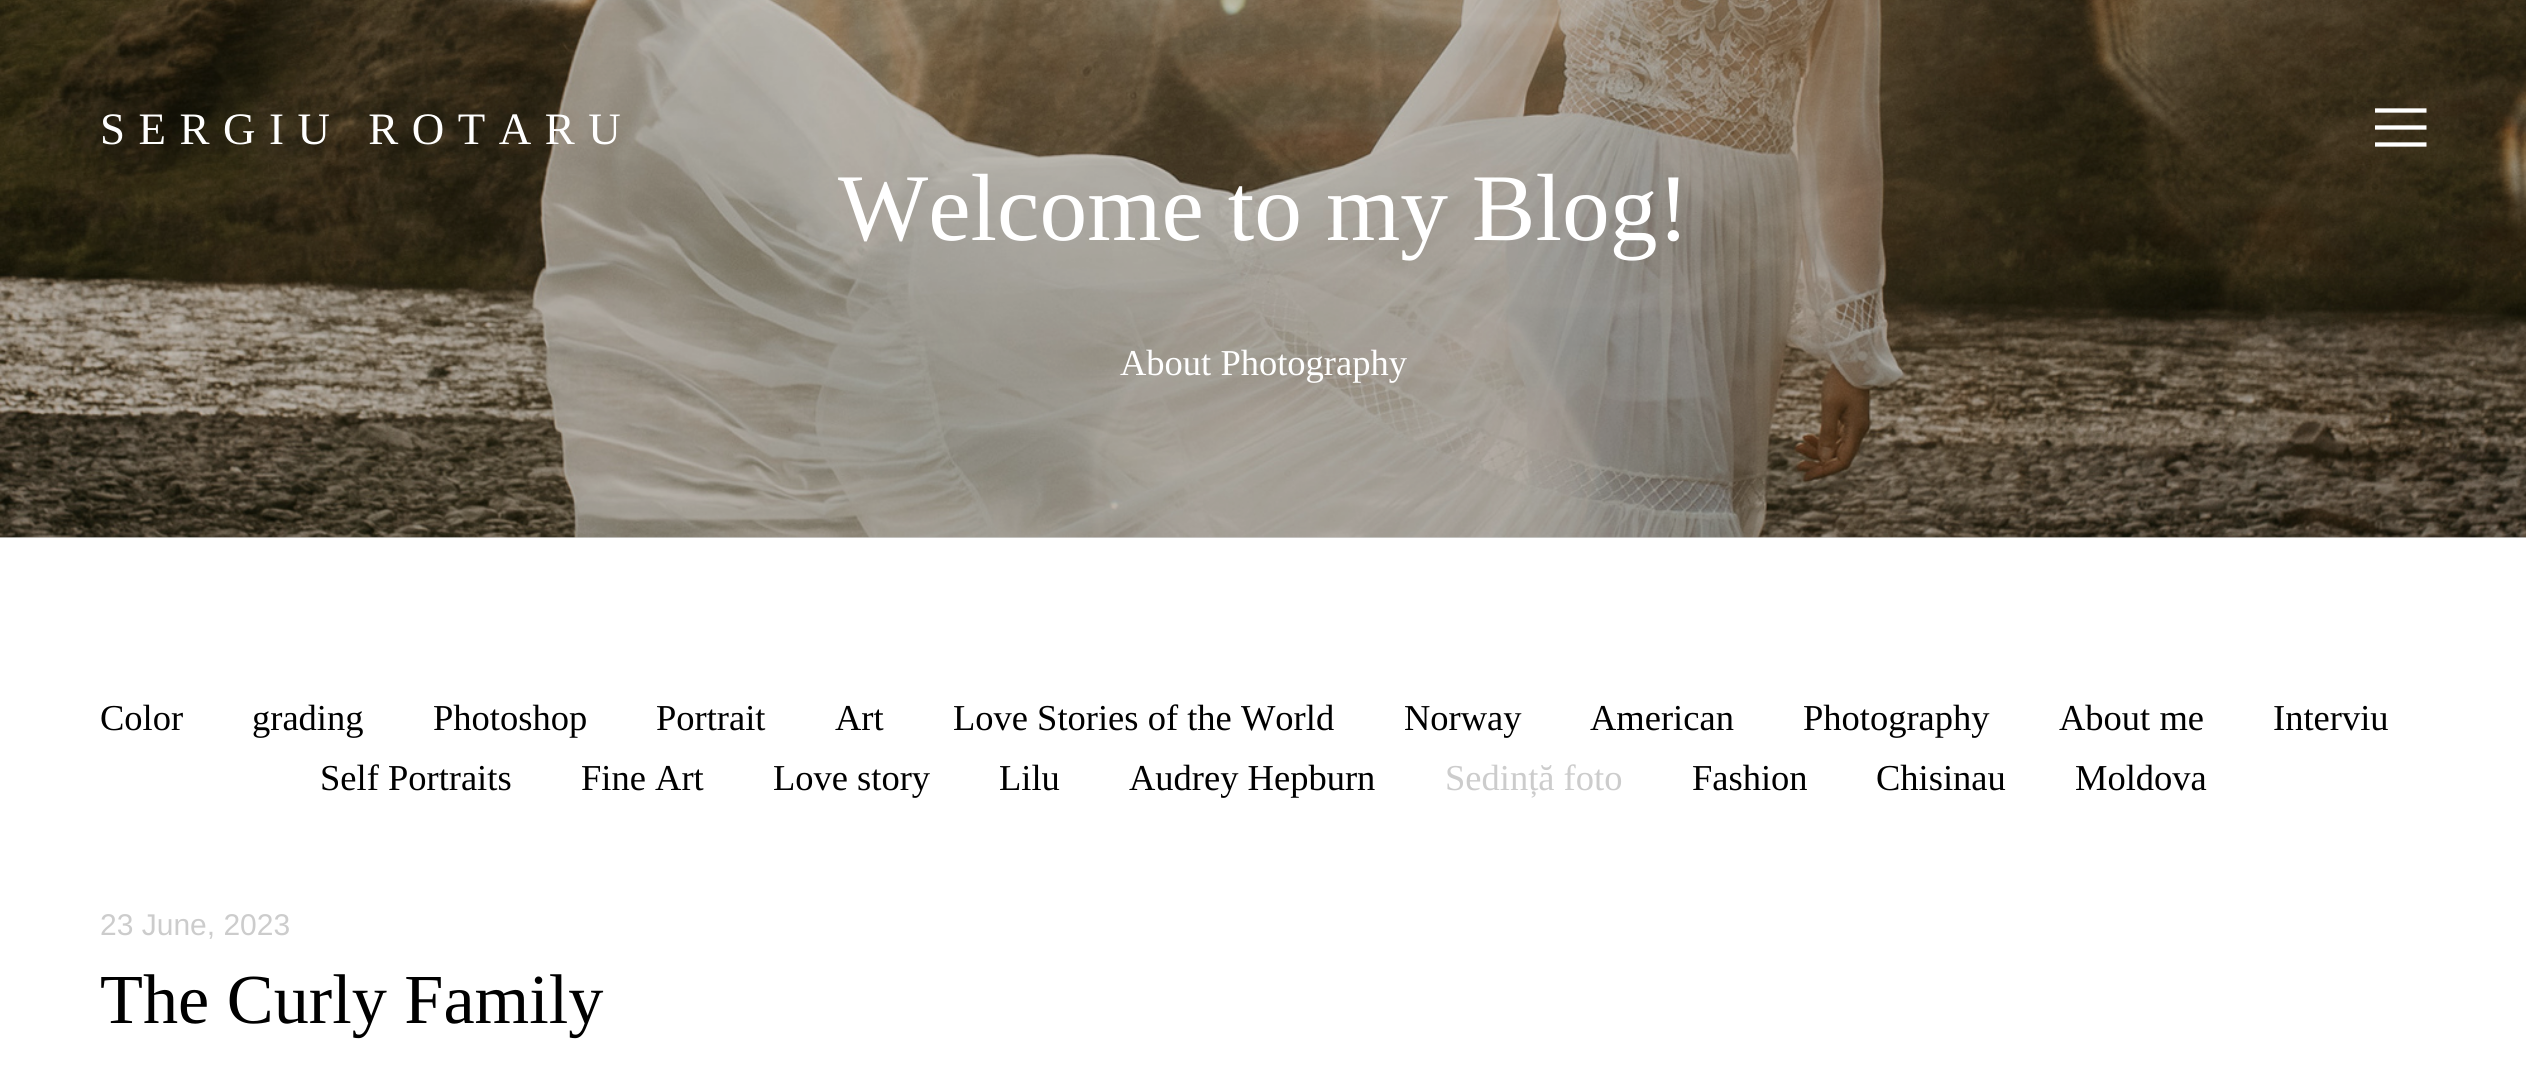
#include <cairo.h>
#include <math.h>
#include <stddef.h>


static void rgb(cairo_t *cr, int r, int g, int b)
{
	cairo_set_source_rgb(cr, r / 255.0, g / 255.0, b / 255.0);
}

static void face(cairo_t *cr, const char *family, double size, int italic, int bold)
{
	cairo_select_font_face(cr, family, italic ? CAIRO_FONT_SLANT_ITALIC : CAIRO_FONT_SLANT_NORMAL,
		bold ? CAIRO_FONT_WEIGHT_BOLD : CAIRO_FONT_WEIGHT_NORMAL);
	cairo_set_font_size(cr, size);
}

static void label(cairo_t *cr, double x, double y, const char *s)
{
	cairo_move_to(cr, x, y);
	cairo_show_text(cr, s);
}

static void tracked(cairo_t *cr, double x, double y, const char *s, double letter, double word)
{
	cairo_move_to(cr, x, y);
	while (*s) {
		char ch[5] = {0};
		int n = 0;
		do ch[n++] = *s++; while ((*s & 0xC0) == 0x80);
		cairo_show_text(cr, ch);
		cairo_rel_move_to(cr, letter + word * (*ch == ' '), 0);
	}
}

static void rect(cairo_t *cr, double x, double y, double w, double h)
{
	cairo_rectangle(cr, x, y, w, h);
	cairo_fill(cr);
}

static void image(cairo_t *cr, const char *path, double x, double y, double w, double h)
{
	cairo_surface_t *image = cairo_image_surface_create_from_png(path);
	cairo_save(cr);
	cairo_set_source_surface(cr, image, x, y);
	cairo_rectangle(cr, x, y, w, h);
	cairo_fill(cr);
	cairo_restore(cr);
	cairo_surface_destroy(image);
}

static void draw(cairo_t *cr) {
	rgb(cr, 255, 255, 255);
	cairo_paint(cr);
	rgb(cr, 207, 207, 207);
	rect(cr, 0, 537, 2526, 1);
	image(cr, "image0.png", 0, 0, 2526, 538);
	face(cr, "Liberation Serif", 45, 0, 0);
	rgb(cr, 255, 255, 255);
	tracked(cr, 100, 144, "SERGIU ROTARU", 13.5, 0);
	cairo_new_path(cr);
	cairo_move_to(cr, 2375, 110.5);
	cairo_line_to(cr, 2426.5, 110.5);
	cairo_move_to(cr, 2375, 127.5);
	cairo_line_to(cr, 2426.5, 127.5);
	cairo_move_to(cr, 2375, 144.5);
	cairo_line_to(cr, 2426.5, 144.5);
	cairo_set_line_width(cr, 4.3);
	cairo_stroke(cr);
	face(cr, "Liberation Serif", 95.5, 0, 0);
	label(cr, 838, 240, "Welcome to my Blog!");
	face(cr, "Liberation Serif", 36.5, 0, 0);
	label(cr, 1120, 375, "About Photography");
	rgb(cr, 0, 0, 0);
	label(cr, 100, 730, "Color");
	label(cr, 252, 730, "grading");
	label(cr, 433, 730, "Photoshop");
	label(cr, 656, 730, "Portrait");
	label(cr, 835, 730, "Art");
	label(cr, 953, 730, "Love Stories of the World");
	label(cr, 1404, 730, "Norway");
	label(cr, 1590, 730, "American");
	label(cr, 1803, 730, "Photography");
	label(cr, 2059, 730, "About me");
	label(cr, 2273, 730, "Interviu");
	label(cr, 320, 790, "Self Portraits");
	label(cr, 581, 790, "Fine Art");
	label(cr, 773, 790, "Love story");
	label(cr, 999, 790, "Lilu");
	label(cr, 1129, 790, "Audrey Hepburn");
	rgb(cr, 204, 204, 204);
	label(cr, 1445, 790, "Sedință foto");
	rgb(cr, 0, 0, 0);
	label(cr, 1692, 790, "Fashion");
	label(cr, 1876, 790, "Chisinau");
	label(cr, 2075, 790, "Moldova");
	face(cr, "Liberation Sans", 30, 0, 0);
	rgb(cr, 204, 204, 204);
	label(cr, 100, 935, "23 June, 2023");
	face(cr, "Liberation Serif", 70.25, 0, 0);
	rgb(cr, 0, 0, 0);
	label(cr, 100, 1023, "The Curly Family");
}

int main(void) {
	cairo_surface_t *surface = cairo_image_surface_create(CAIRO_FORMAT_RGB24, 2526, 1073);
	cairo_t *cr = cairo_create(surface);
	cairo_font_options_t *options = cairo_font_options_create();
	cairo_font_options_set_hint_metrics(options, CAIRO_HINT_METRICS_OFF);
	cairo_font_options_set_hint_style(options, CAIRO_HINT_STYLE_NONE);
	cairo_set_font_options(cr, options);
	cairo_set_miter_limit(cr, 4);
	draw(cr);
	cairo_surface_write_to_png(surface, "render.png");
	cairo_font_options_destroy(options);
	cairo_destroy(cr);
	cairo_surface_destroy(surface);
	return 0;
}
